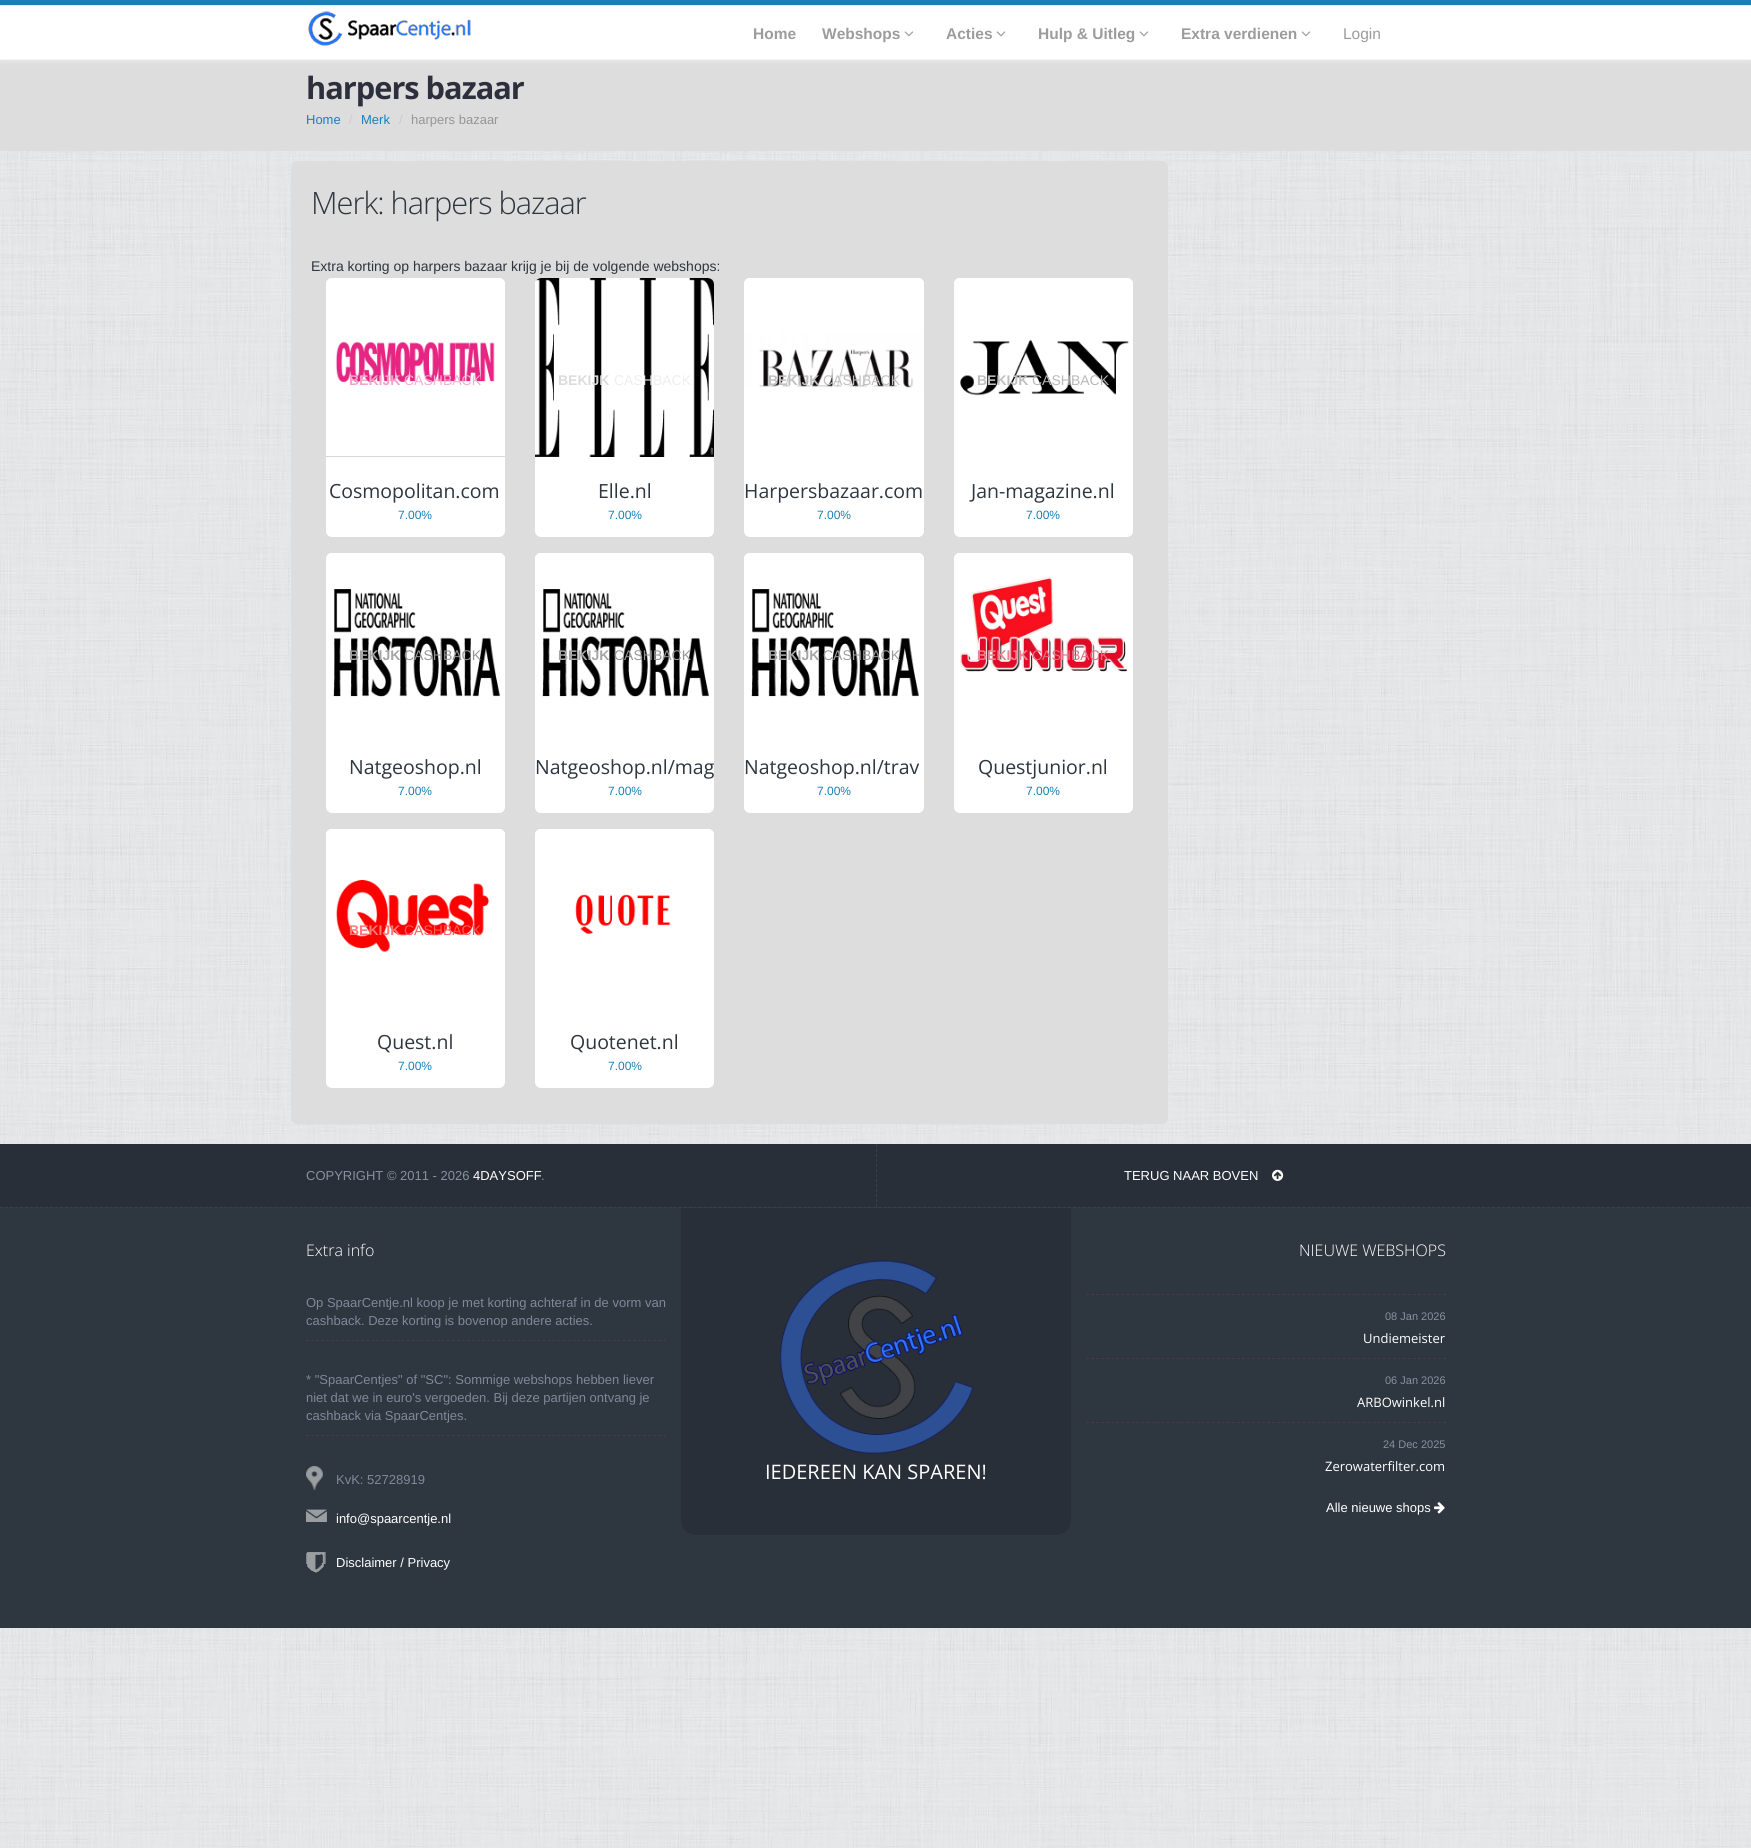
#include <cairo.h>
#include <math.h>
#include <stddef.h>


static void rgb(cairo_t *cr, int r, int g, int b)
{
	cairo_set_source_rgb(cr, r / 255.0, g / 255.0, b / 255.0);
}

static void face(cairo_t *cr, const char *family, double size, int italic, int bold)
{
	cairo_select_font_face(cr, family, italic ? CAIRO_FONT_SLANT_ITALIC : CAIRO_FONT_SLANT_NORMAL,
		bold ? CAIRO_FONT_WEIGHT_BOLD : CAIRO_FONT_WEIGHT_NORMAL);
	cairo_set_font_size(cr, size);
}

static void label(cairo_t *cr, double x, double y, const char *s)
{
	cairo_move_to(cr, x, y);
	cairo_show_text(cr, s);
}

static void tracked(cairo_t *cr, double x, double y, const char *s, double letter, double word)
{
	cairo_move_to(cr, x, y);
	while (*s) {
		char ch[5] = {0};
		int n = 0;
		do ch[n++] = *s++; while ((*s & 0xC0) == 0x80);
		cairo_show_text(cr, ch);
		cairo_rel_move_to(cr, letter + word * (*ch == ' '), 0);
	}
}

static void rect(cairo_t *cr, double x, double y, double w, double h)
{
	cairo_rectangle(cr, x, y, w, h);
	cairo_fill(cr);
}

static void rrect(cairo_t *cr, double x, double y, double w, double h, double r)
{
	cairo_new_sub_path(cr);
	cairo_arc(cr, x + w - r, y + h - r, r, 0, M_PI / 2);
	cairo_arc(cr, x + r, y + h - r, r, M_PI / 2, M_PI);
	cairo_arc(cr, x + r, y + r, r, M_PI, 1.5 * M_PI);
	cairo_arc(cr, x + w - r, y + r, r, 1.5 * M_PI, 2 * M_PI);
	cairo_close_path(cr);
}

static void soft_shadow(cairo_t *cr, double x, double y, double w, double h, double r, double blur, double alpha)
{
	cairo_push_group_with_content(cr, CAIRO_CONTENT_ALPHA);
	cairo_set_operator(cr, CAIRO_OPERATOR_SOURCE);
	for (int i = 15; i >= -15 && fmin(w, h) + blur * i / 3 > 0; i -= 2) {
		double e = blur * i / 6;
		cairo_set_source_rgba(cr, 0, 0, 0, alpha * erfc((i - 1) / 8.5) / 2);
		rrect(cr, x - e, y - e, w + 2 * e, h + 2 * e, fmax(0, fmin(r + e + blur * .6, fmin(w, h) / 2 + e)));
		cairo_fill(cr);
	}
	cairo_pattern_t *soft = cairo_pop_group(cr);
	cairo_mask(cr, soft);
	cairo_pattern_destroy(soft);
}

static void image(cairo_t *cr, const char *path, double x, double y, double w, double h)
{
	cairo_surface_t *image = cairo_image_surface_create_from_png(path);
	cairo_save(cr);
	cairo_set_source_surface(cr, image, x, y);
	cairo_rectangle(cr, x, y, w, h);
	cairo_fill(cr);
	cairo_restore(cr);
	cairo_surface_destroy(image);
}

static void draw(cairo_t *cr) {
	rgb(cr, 255, 255, 255);
	cairo_paint(cr);
	image(cr, "image0.png", 0, 151, 1751, 1697);
	rgb(cr, 221, 221, 221);
	rect(cr, 0, 60, 1751, 91);
	rgb(cr, 238, 238, 238);
	soft_shadow(cr, 0, 0, 1751, 60, 0, 4, 1);
	rgb(cr, 25, 128, 182);
	rect(cr, 0, 0, 1751, 5);
	rgb(cr, 238, 238, 238);
	rect(cr, 0, 5, 1751, 1);
	rgb(cr, 255, 255, 255);
	rect(cr, 0, 6, 1751, 53);
	rgb(cr, 244, 245, 247);
	rect(cr, 0, 59, 1751, 1);
	image(cr, "image1.png", 308, 11, 163, 35);
	face(cr, "Liberation Sans", 15.5, 0, 1);
	rgb(cr, 156, 156, 156);
	label(cr, 753, 39, "Home");
	label(cr, 822, 39, "Webshops");
	image(cr, "image2.png", 904, 31, 10, 6);
	label(cr, 946, 39, "Acties");
	image(cr, "image2.png", 996, 31, 10, 6);
	label(cr, 1038, 39, "Hulp & Uitleg");
	image(cr, "image2.png", 1139, 31, 10, 6);
	label(cr, 1181, 39, "Extra verdienen");
	image(cr, "image2.png", 1301, 31, 10, 6);
	face(cr, "Liberation Sans", 15.5, 0, 0);
	label(cr, 1343, 39, "Login");
	face(cr, "Open Sans", 30.75, 0, 1);
	rgb(cr, 45, 47, 60);
	tracked(cr, 306, 99, "harpers bazaar", -1, 0);
	face(cr, "Liberation Sans", 13, 0, 0);
	rgb(cr, 25, 128, 182);
	label(cr, 306, 124, "Home");
	rgb(cr, 204, 204, 204);
	label(cr, 349, 124, "/");
	rgb(cr, 25, 128, 182);
	label(cr, 361, 124, "Merk");
	rgb(cr, 204, 204, 204);
	label(cr, 399, 124, "/");
	rgb(cr, 150, 150, 150);
	label(cr, 411, 124, "harpers bazaar");
	rgb(cr, 221, 221, 221);
	rrect(cr, 291, 161, 877, 963, 6);
	cairo_fill(cr);
	face(cr, "Open Sans Light", 30.75, 0, 0);
	rgb(cr, 46, 54, 63);
	tracked(cr, 311, 214, "Merk: harpers bazaar", -1, 0);
	face(cr, "Liberation Sans", 14, 0, 0);
	label(cr, 311, 271, "Extra korting op harpers bazaar krijg je bij de volgende webshops:");
	rgb(cr, 255, 255, 255);
	rrect(cr, 326, 278, 179, 259, 6);
	cairo_fill(cr);
	image(cr, "image3.png", 326, 278, 179, 179);
	face(cr, "Liberation Sans", 14, 0, 1);
	rgb(cr, 244, 164, 202);
	label(cr, 349, 385, "BEKIJK");
	face(cr, "Liberation Sans", 14, 0, 0);
	rgb(cr, 245, 175, 209);
	label(cr, 404, 385, "CASHBACK");
	face(cr, "Open Sans", 19.5, 0, 0);
	rgb(cr, 46, 54, 63);
	label(cr, 329, 498, "Cosmopolitan.com");
	face(cr, "Liberation Sans", 12, 0, 0);
	rgb(cr, 25, 128, 182);
	label(cr, 398, 519, "7.00%");
	rgb(cr, 255, 255, 255);
	rrect(cr, 535, 278, 179, 259, 6);
	cairo_fill(cr);
	cairo_new_path(cr);
	cairo_move_to(cr, 541, 278);
	cairo_line_to(cr, 708, 278);
	cairo_curve_to(cr, 711.5, 278, 714, 280.5, 714, 284);
	cairo_line_to(cr, 714, 457);
	cairo_line_to(cr, 535, 457);
	cairo_line_to(cr, 535, 284);
	cairo_curve_to(cr, 535, 280.5, 537.5, 278, 541, 278);
	cairo_close_path(cr);
	cairo_fill(cr);
	image(cr, "image4.png", 535, 278, 179, 179);
	face(cr, "Liberation Sans", 14, 0, 1);
	rgb(cr, 220, 220, 220);
	label(cr, 558, 385, "BEKIJK");
	face(cr, "Liberation Sans", 14, 0, 0);
	rgb(cr, 238, 238, 238);
	label(cr, 614, 385, "CASHBACK");
	face(cr, "Open Sans", 19.5, 0, 0);
	rgb(cr, 46, 54, 63);
	label(cr, 598, 498, "Elle.nl");
	face(cr, "Liberation Sans", 12, 0, 0);
	rgb(cr, 25, 128, 182);
	label(cr, 608, 519, "7.00%");
	rgb(cr, 255, 255, 255);
	rrect(cr, 744, 278, 180, 259, 6);
	cairo_fill(cr);
	cairo_new_path(cr);
	cairo_move_to(cr, 750, 278);
	cairo_line_to(cr, 918, 278);
	cairo_curve_to(cr, 921.5, 278, 924, 280.5, 924, 284);
	cairo_line_to(cr, 924, 457);
	cairo_line_to(cr, 744, 457);
	cairo_line_to(cr, 744, 284);
	cairo_curve_to(cr, 744, 280.5, 746.5, 278, 750, 278);
	cairo_close_path(cr);
	cairo_fill(cr);
	image(cr, "image5.png", 744, 278, 180, 110);
	face(cr, "Liberation Sans", 14, 0, 1);
	rgb(cr, 193, 192, 192);
	label(cr, 768, 385, "BEKIJK");
	face(cr, "Liberation Sans", 14, 0, 0);
	label(cr, 823, 385, "CASHBACK");
	face(cr, "Open Sans", 19.5, 0, 0);
	rgb(cr, 46, 54, 63);
	label(cr, 744, 498, "Harpersbazaar.com");
	face(cr, "Liberation Sans", 12, 0, 0);
	rgb(cr, 25, 128, 182);
	label(cr, 817, 519, "7.00%");
	rgb(cr, 255, 255, 255);
	rrect(cr, 954, 278, 179, 259, 6);
	cairo_fill(cr);
	cairo_new_path(cr);
	cairo_move_to(cr, 960, 278);
	cairo_line_to(cr, 1127, 278);
	cairo_curve_to(cr, 1130.5, 278, 1133, 280.5, 1133, 284);
	cairo_line_to(cr, 1133, 457);
	cairo_line_to(cr, 954, 457);
	cairo_line_to(cr, 954, 284);
	cairo_curve_to(cr, 954, 280.5, 956.5, 278, 960, 278);
	cairo_close_path(cr);
	cairo_fill(cr);
	image(cr, "image6.png", 960, 339, 169, 57);
	face(cr, "Liberation Sans", 14, 0, 1);
	rgb(cr, 193, 192, 192);
	label(cr, 977, 385, "BEKIJK");
	face(cr, "Liberation Sans", 14, 0, 0);
	rgb(cr, 184, 184, 184);
	label(cr, 1032, 385, "CASHBACK");
	face(cr, "Open Sans", 19.5, 0, 0);
	rgb(cr, 46, 54, 63);
	label(cr, 971, 498, "Jan-magazine.nl");
	face(cr, "Liberation Sans", 12, 0, 0);
	rgb(cr, 25, 128, 182);
	label(cr, 1026, 519, "7.00%");
	rgb(cr, 255, 255, 255);
	rrect(cr, 326, 553, 179, 260, 6);
	cairo_fill(cr);
	cairo_new_path(cr);
	cairo_move_to(cr, 332, 553);
	cairo_line_to(cr, 499, 553);
	cairo_curve_to(cr, 502.5, 553, 505, 555.5, 505, 559);
	cairo_line_to(cr, 505, 733);
	cairo_line_to(cr, 326, 733);
	cairo_line_to(cr, 326, 559);
	cairo_curve_to(cr, 326, 555.5, 328.5, 553, 332, 553);
	cairo_close_path(cr);
	cairo_fill(cr);
	image(cr, "image7.png", 333, 589, 168, 108);
	face(cr, "Liberation Sans", 14, 0, 1);
	rgb(cr, 165, 165, 165);
	label(cr, 349, 660, "BEKIJK");
	face(cr, "Liberation Sans", 14, 0, 0);
	rgb(cr, 150, 150, 150);
	label(cr, 404, 660, "CASHBACK");
	face(cr, "Open Sans", 19.5, 0, 0);
	rgb(cr, 46, 54, 63);
	label(cr, 349, 774, "Natgeoshop.nl");
	face(cr, "Liberation Sans", 12, 0, 0);
	rgb(cr, 25, 128, 182);
	label(cr, 398, 795, "7.00%");
	rgb(cr, 255, 255, 255);
	rrect(cr, 535, 553, 179, 260, 6);
	cairo_fill(cr);
	cairo_new_path(cr);
	cairo_move_to(cr, 541, 553);
	cairo_line_to(cr, 708, 553);
	cairo_curve_to(cr, 711.5, 553, 714, 555.5, 714, 559);
	cairo_line_to(cr, 714, 733);
	cairo_line_to(cr, 535, 733);
	cairo_line_to(cr, 535, 559);
	cairo_curve_to(cr, 535, 555.5, 537.5, 553, 541, 553);
	cairo_close_path(cr);
	cairo_fill(cr);
	image(cr, "image7.png", 542, 589, 168, 108);
	face(cr, "Liberation Sans", 14, 0, 1);
	rgb(cr, 165, 165, 165);
	label(cr, 558, 660, "BEKIJK");
	face(cr, "Liberation Sans", 14, 0, 0);
	rgb(cr, 150, 150, 150);
	label(cr, 614, 660, "CASHBACK");
	cairo_save(cr);
	rrect(cr, 535, 553, 179, 260, 6);
	cairo_clip(cr);
	face(cr, "Open Sans", 19.5, 0, 0);
	rgb(cr, 46, 54, 63);
	label(cr, 535, 774, "Natgeoshop.nl/mag");
	cairo_restore(cr);
	face(cr, "Liberation Sans", 12, 0, 0);
	rgb(cr, 25, 128, 182);
	label(cr, 608, 795, "7.00%");
	rgb(cr, 255, 255, 255);
	rrect(cr, 744, 553, 180, 260, 6);
	cairo_fill(cr);
	cairo_new_path(cr);
	cairo_move_to(cr, 750, 553);
	cairo_line_to(cr, 918, 553);
	cairo_curve_to(cr, 921.5, 553, 924, 555.5, 924, 559);
	cairo_line_to(cr, 924, 733);
	cairo_line_to(cr, 744, 733);
	cairo_line_to(cr, 744, 559);
	cairo_curve_to(cr, 744, 555.5, 746.5, 553, 750, 553);
	cairo_close_path(cr);
	cairo_fill(cr);
	image(cr, "image8.png", 751, 589, 169, 108);
	face(cr, "Liberation Sans", 14, 0, 1);
	rgb(cr, 165, 165, 165);
	label(cr, 768, 660, "BEKIJK");
	face(cr, "Liberation Sans", 14, 0, 0);
	rgb(cr, 156, 156, 156);
	label(cr, 823, 660, "CASHBACK");
	face(cr, "Open Sans", 19.5, 0, 0);
	rgb(cr, 46, 54, 63);
	label(cr, 744, 774, "Natgeoshop.nl/trav");
	face(cr, "Liberation Sans", 12, 0, 0);
	rgb(cr, 25, 128, 182);
	label(cr, 817, 795, "7.00%");
	rgb(cr, 255, 255, 255);
	rrect(cr, 954, 553, 179, 260, 6);
	cairo_fill(cr);
	cairo_new_path(cr);
	cairo_move_to(cr, 960, 553);
	cairo_line_to(cr, 1127, 553);
	cairo_curve_to(cr, 1130.5, 553, 1133, 555.5, 1133, 559);
	cairo_line_to(cr, 1133, 733);
	cairo_line_to(cr, 954, 733);
	cairo_line_to(cr, 954, 559);
	cairo_curve_to(cr, 954, 555.5, 956.5, 553, 960, 553);
	cairo_close_path(cr);
	cairo_fill(cr);
	image(cr, "image9.png", 954, 553, 179, 119);
	face(cr, "Liberation Sans", 14, 0, 1);
	rgb(cr, 231, 133, 146);
	label(cr, 977, 660, "BEKIJK");
	face(cr, "Liberation Sans", 14, 0, 0);
	rgb(cr, 226, 114, 129);
	label(cr, 1032, 660, "CASHBACK");
	face(cr, "Open Sans", 19.5, 0, 0);
	rgb(cr, 46, 54, 63);
	label(cr, 978, 774, "Questjunior.nl");
	face(cr, "Liberation Sans", 12, 0, 0);
	rgb(cr, 25, 128, 182);
	label(cr, 1026, 795, "7.00%");
	rgb(cr, 255, 255, 255);
	rrect(cr, 326, 829, 179, 259, 6);
	cairo_fill(cr);
	cairo_new_path(cr);
	cairo_move_to(cr, 332, 829);
	cairo_line_to(cr, 499, 829);
	cairo_curve_to(cr, 502.5, 829, 505, 831.5, 505, 835);
	cairo_line_to(cr, 505, 1008);
	cairo_line_to(cr, 326, 1008);
	cairo_line_to(cr, 326, 835);
	cairo_curve_to(cr, 326, 831.5, 328.5, 829, 332, 829);
	cairo_close_path(cr);
	cairo_fill(cr);
	image(cr, "image10.png", 326, 829, 179, 123);
	face(cr, "Liberation Sans", 14, 0, 1);
	rgb(cr, 255, 120, 120);
	label(cr, 349, 935, "BEKIJK");
	face(cr, "Liberation Sans", 14, 0, 0);
	rgb(cr, 255, 91, 91);
	label(cr, 404, 935, "CASHBACK");
	face(cr, "Open Sans", 19.5, 0, 0);
	rgb(cr, 46, 54, 63);
	label(cr, 377, 1049, "Quest.nl");
	face(cr, "Liberation Sans", 12, 0, 0);
	rgb(cr, 25, 128, 182);
	label(cr, 398, 1070, "7.00%");
	rgb(cr, 255, 255, 255);
	rrect(cr, 535, 829, 179, 259, 6);
	cairo_fill(cr);
	cairo_new_path(cr);
	cairo_move_to(cr, 541, 829);
	cairo_line_to(cr, 708, 829);
	cairo_curve_to(cr, 711.5, 829, 714, 831.5, 714, 835);
	cairo_line_to(cr, 714, 1008);
	cairo_line_to(cr, 535, 1008);
	cairo_line_to(cr, 535, 835);
	cairo_curve_to(cr, 535, 831.5, 537.5, 829, 541, 829);
	cairo_close_path(cr);
	cairo_fill(cr);
	image(cr, "image11.png", 575, 894, 96, 40);
	face(cr, "Open Sans", 19.5, 0, 0);
	rgb(cr, 46, 54, 63);
	label(cr, 570, 1049, "Quotenet.nl");
	face(cr, "Liberation Sans", 12, 0, 0);
	rgb(cr, 25, 128, 182);
	label(cr, 608, 1070, "7.00%");
	rgb(cr, 41, 47, 56);
	rect(cr, 0, 1144, 1751, 63);
	face(cr, "Liberation Sans", 13, 0, 0);
	rgb(cr, 135, 145, 159);
	label(cr, 306, 1180, "COPYRIGHT © 2011 - 2026");
	rgb(cr, 255, 255, 255);
	label(cr, 473, 1180, "4DAYSOFF");
	rgb(cr, 135, 145, 159);
	label(cr, 541, 1180, ".");
	cairo_new_path(cr);
	cairo_move_to(cr, 876.5, 1144);
	cairo_line_to(cr, 876.5, 1207);
	rgb(cr, 64, 62, 68);
	cairo_set_line_width(cr, 1);
	cairo_set_dash(cr, (double[]){3, 2}, 2, 0);
	cairo_stroke(cr);
	rgb(cr, 255, 255, 255);
	label(cr, 1124, 1180, "TERUG NAAR BOVEN");
	image(cr, "image12.png", 1272, 1169, 12, 12);
	rgb(cr, 46, 54, 63);
	rect(cr, 0, 1207, 1751, 421);
	cairo_new_path(cr);
	cairo_move_to(cr, 0, 1207.5);
	cairo_line_to(cr, 1751, 1207.5);
	rgb(cr, 64, 62, 68);
	cairo_set_dash(cr, (double[]){3, 1.99}, 2, 0);
	cairo_stroke(cr);
	face(cr, "Open Sans Light", 16, 0, 0);
	rgb(cr, 255, 255, 255);
	label(cr, 306, 1256, "Extra info");
	cairo_new_path(cr);
	cairo_move_to(cr, 306, 1340.5);
	cairo_line_to(cr, 666, 1340.5);
	rgb(cr, 64, 62, 68);
	cairo_set_dash(cr, (double[]){3, 2.03}, 2, 0);
	cairo_stroke(cr);
	face(cr, "Liberation Sans", 13, 0, 0);
	rgb(cr, 126, 137, 152);
	label(cr, 306, 1307, "Op SpaarCentje.nl koop je met korting achteraf in de vorm van");
	label(cr, 306, 1325, "cashback. Deze korting is bovenop andere acties.");
	cairo_new_path(cr);
	cairo_move_to(cr, 306, 1435.5);
	cairo_line_to(cr, 666, 1435.5);
	rgb(cr, 64, 62, 68);
	cairo_stroke(cr);
	rgb(cr, 126, 137, 152);
	label(cr, 306, 1384, "* \"SpaarCentjes\" of \"SC\": Sommige webshops hebben liever");
	label(cr, 306, 1402, "niet dat we in euro's vergoeden. Bij deze partijen ontvang je");
	label(cr, 306, 1420, "cashback via SpaarCentjes.");
	image(cr, "image13.png", 306, 1466, 20, 24);
	label(cr, 336, 1484, "KvK: 52728919");
	image(cr, "image14.png", 306, 1509, 21, 13);
	rgb(cr, 255, 255, 255);
	label(cr, 336, 1523, "info@spaarcentje.nl");
	image(cr, "image15.png", 306, 1552, 20, 21);
	label(cr, 336, 1567, "Disclaimer / Privacy");
	rgb(cr, 41, 47, 56);
	cairo_new_path(cr);
	cairo_move_to(cr, 681, 1208);
	cairo_line_to(cr, 1071, 1208);
	cairo_line_to(cr, 1071, 1520);
	cairo_curve_to(cr, 1071, 1528.5, 1064.5, 1535, 1056, 1535);
	cairo_line_to(cr, 696, 1535);
	cairo_curve_to(cr, 687.5, 1535, 681, 1528.5, 681, 1520);
	cairo_close_path(cr);
	cairo_fill(cr);
	image(cr, "image16.png", 780, 1260, 194, 194);
	face(cr, "Open Sans", 20, 0, 0);
	rgb(cr, 255, 255, 255);
	label(cr, 765, 1479, "IEDEREEN KAN SPAREN!");
	face(cr, "Open Sans Light", 16, 0, 0);
	label(cr, 1299, 1256, "NIEUWE WEBSHOPS");
	cairo_new_path(cr);
	cairo_move_to(cr, 1086, 1294.5);
	cairo_line_to(cr, 1446, 1294.5);
	rgb(cr, 64, 62, 68);
	cairo_stroke(cr);
	face(cr, "Liberation Sans", 11, 0, 0);
	rgb(cr, 135, 145, 159);
	label(cr, 1385, 1320, "08 Jan 2026");
	face(cr, "Open Sans", 13, 0, 0);
	rgb(cr, 255, 255, 255);
	label(cr, 1363, 1343, "Undiemeister");
	cairo_new_path(cr);
	cairo_move_to(cr, 1086, 1358.5);
	cairo_line_to(cr, 1446, 1358.5);
	rgb(cr, 64, 62, 68);
	cairo_stroke(cr);
	face(cr, "Liberation Sans", 11, 0, 0);
	rgb(cr, 135, 145, 159);
	label(cr, 1385, 1384, "06 Jan 2026");
	face(cr, "Open Sans", 13, 0, 0);
	rgb(cr, 255, 255, 255);
	label(cr, 1357, 1407, "ARBOwinkel.nl");
	cairo_new_path(cr);
	cairo_move_to(cr, 1086, 1422.5);
	cairo_line_to(cr, 1446, 1422.5);
	rgb(cr, 64, 62, 68);
	cairo_stroke(cr);
	face(cr, "Liberation Sans", 11, 0, 0);
	rgb(cr, 135, 145, 159);
	label(cr, 1383, 1448, "24 Dec 2025");
	face(cr, "Open Sans", 13, 0, 0);
	rgb(cr, 255, 255, 255);
	label(cr, 1325, 1471, "Zerowaterfilter.com");
	face(cr, "Liberation Sans", 13, 0, 0);
	label(cr, 1326, 1512, "Alle nieuwe shops");
	image(cr, "image17.png", 1434, 1502, 11, 12);
}

int main(void) {
	cairo_surface_t *surface = cairo_image_surface_create(CAIRO_FORMAT_RGB24, 1751, 1848);
	cairo_t *cr = cairo_create(surface);
	cairo_font_options_t *options = cairo_font_options_create();
	cairo_font_options_set_hint_metrics(options, CAIRO_HINT_METRICS_OFF);
	cairo_font_options_set_hint_style(options, CAIRO_HINT_STYLE_NONE);
	cairo_set_font_options(cr, options);
	cairo_set_miter_limit(cr, 4);
	draw(cr);
	cairo_surface_write_to_png(surface, "render.png");
	cairo_font_options_destroy(options);
	cairo_destroy(cr);
	cairo_surface_destroy(surface);
	return 0;
}
